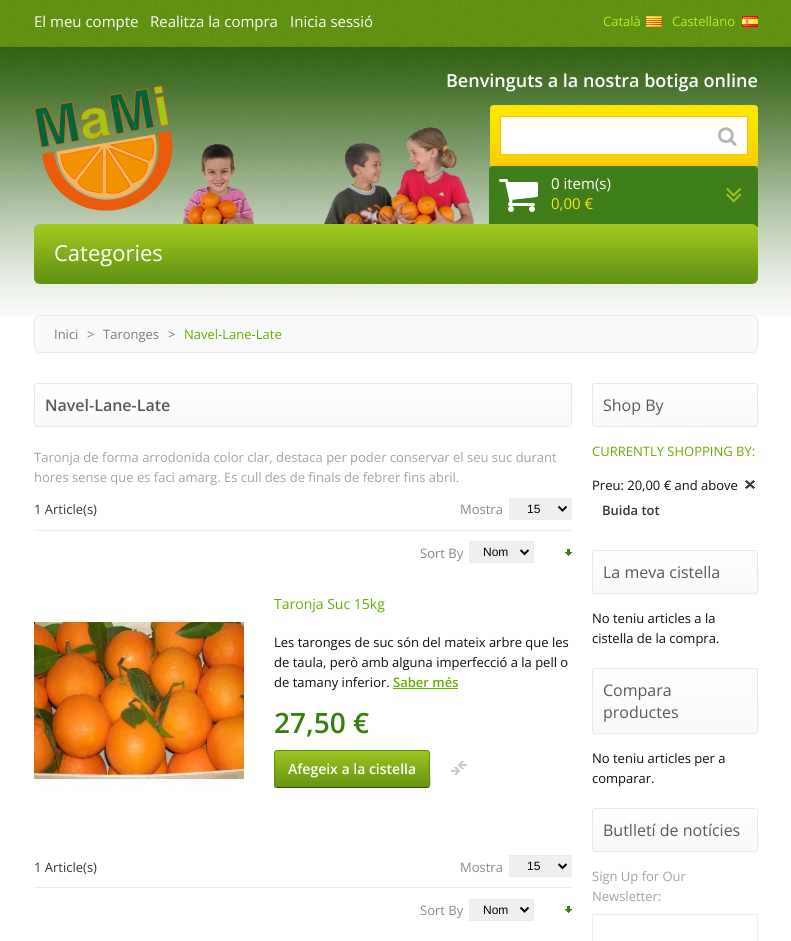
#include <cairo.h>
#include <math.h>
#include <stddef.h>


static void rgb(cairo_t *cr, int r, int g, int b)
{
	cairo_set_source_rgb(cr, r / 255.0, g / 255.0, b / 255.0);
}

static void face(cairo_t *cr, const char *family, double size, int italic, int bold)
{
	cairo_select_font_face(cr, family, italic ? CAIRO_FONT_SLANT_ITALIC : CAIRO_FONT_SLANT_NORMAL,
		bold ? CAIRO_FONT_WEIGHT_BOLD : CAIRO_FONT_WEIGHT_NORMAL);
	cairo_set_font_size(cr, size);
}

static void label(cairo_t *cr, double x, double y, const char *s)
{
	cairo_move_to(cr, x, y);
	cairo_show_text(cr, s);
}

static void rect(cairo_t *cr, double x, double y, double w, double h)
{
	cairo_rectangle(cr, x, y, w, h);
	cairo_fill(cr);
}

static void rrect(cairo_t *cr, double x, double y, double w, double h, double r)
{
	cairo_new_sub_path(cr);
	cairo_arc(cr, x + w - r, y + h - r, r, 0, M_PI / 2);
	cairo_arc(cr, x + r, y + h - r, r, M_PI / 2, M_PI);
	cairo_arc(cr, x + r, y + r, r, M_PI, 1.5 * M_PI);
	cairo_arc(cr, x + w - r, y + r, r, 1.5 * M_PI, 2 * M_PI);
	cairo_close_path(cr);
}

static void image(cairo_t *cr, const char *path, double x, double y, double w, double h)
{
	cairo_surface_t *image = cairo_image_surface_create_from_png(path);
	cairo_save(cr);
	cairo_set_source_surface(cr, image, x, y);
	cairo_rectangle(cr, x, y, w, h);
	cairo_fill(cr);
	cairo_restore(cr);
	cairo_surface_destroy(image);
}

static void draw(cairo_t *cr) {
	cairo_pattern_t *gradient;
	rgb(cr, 255, 255, 255);
	cairo_paint(cr);
	image(cr, "image0.png", 0, 47, 791, 269);
	image(cr, "image1.png", 0, 0, 791, 47);
	face(cr, "Open Sans", 15, 0, 0);
	rgb(cr, 255, 255, 255);
	label(cr, 34, 27, "El meu compte");
	label(cr, 150, 27, "Realitza la compra");
	label(cr, 290, 27, "Inicia sessió");
	face(cr, "Open Sans", 13, 0, 0);
	rgb(cr, 190, 235, 32);
	label(cr, 603, 26, "Català");
	image(cr, "image2.png", 646, 16, 16, 11);
	label(cr, 672, 26, "Castellano");
	image(cr, "image3.png", 742, 16, 16, 11);
	face(cr, "Open Sans SemiBold", 18, 0, 0);
	rgb(cr, 255, 255, 255);
	label(cr, 446, 87, "Benvinguts a la nostra botiga online");
	image(cr, "image4.png", 34, 85, 139, 126);
	image(cr, "image5.png", 182, 127, 292, 97);
	image(cr, "image6.png", 490, 105, 268, 61);
	cairo_rectangle(cr, 500.5, 116.5, 247, 38);
	cairo_fill_preserve(cr);
	rgb(cr, 252, 197, 2);
	cairo_set_line_width(cr, 1);
	cairo_stroke(cr);
	image(cr, "image7.png", 718, 127, 19, 19);
	rgb(cr, 63, 126, 25);
	cairo_new_path(cr);
	cairo_move_to(cr, 493, 166);
	cairo_line_to(cr, 754, 166);
	cairo_curve_to(cr, 756, 166, 758, 168, 758, 170);
	cairo_line_to(cr, 758, 227);
	cairo_line_to(cr, 489, 227);
	cairo_line_to(cr, 489, 170);
	cairo_curve_to(cr, 489, 168, 491, 166, 493, 166);
	cairo_close_path(cr);
	cairo_fill(cr);
	image(cr, "image8.png", 499, 179, 39, 33);
	face(cr, "Open Sans", 15, 0, 0);
	rgb(cr, 255, 255, 255);
	label(cr, 551, 189, "0 item(s)");
	image(cr, "image9.png", 726, 187, 16, 16);
	rgb(cr, 252, 231, 2);
	label(cr, 551, 209, "0,00 €");
	image(cr, "image10.png", 34, 224, 724, 60);
	face(cr, "Open Sans", 22, 0, 0);
	rgb(cr, 255, 255, 255);
	label(cr, 54, 261, "Categories");
	rgb(cr, 249, 249, 249);
	rrect(cr, 34.5, 315.5, 723, 37, 5.5);
	cairo_fill_preserve(cr);
	rgb(cr, 232, 232, 232);
	cairo_stroke(cr);
	face(cr, "Open Sans", 13, 0, 0);
	rgb(cr, 123, 123, 123);
	label(cr, 54, 339, "Inici");
	label(cr, 87, 339, ">");
	label(cr, 103, 339, "Taronges");
	label(cr, 168, 339, ">");
	rgb(cr, 101, 174, 1);
	label(cr, 184, 339, "Navel-Lane-Late");
	cairo_save(cr);
	rrect(cr, 34, 383, 538, 44, 3);
	cairo_clip(cr);
	gradient = cairo_pattern_create_linear(35, 384, 35, 426);
	cairo_pattern_add_color_stop_rgba(gradient, 0, 1, 1, 1, 1);
	cairo_pattern_add_color_stop_rgba(gradient, 1, 0.976, 0.976, 0.976, 1);
	cairo_set_source(cr, gradient);
	cairo_pattern_destroy(gradient);
	rect(cr, 34, 384, 538, 42);
	cairo_restore(cr);
	rrect(cr, 34.5, 383.5, 537, 43, 2.5);
	rgb(cr, 232, 232, 232);
	cairo_stroke(cr);
	face(cr, "Open Sans SemiBold", 16, 0, 0);
	rgb(cr, 90, 89, 89);
	label(cr, 45, 411, "Navel-Lane-Late");
	face(cr, "Open Sans", 13, 0, 0);
	rgb(cr, 163, 163, 163);
	label(cr, 34, 462, "Taronja de forma arrodonida color clar, destaca per poder conservar el seu suc durant");
	label(cr, 34, 482, "hores sense que es faci amarg. Es cull des de finals de febrer fins abril.");
	rgb(cr, 236, 236, 236);
	rect(cr, 34, 530, 538, 1);
	rgb(cr, 56, 55, 55);
	label(cr, 34, 514, "1 Article(s)");
	rgb(cr, 138, 137, 137);
	label(cr, 460, 514, "Mostra");
	rgb(cr, 239, 239, 239);
	cairo_rectangle(cr, 509.5, 498.5, 62, 21);
	cairo_fill_preserve(cr);
	rgb(cr, 236, 236, 236);
	cairo_stroke(cr);
	cairo_new_path(cr);
	cairo_move_to(cr, 558.5, 506.5);
	cairo_line_to(cr, 562.5, 510.5);
	cairo_line_to(cr, 566.5, 506.5);
	rgb(cr, 0, 0, 0);
	cairo_set_line_width(cr, 2);
	cairo_stroke(cr);
	face(cr, "Liberation Sans", 12, 0, 0);
	label(cr, 527, 513, "15");
	face(cr, "Open Sans", 13, 0, 0);
	rgb(cr, 138, 137, 137);
	label(cr, 420, 558, "Sort By");
	rgb(cr, 239, 239, 239);
	cairo_rectangle(cr, 469.5, 541.5, 64, 21);
	cairo_fill_preserve(cr);
	rgb(cr, 236, 236, 236);
	cairo_set_line_width(cr, 1);
	cairo_stroke(cr);
	cairo_new_path(cr);
	cairo_move_to(cr, 520.5, 550);
	cairo_line_to(cr, 524.5, 554);
	cairo_line_to(cr, 528.5, 550);
	rgb(cr, 0, 0, 0);
	cairo_set_line_width(cr, 2);
	cairo_stroke(cr);
	face(cr, "Liberation Sans", 12, 0, 0);
	label(cr, 483, 556, "Nom");
	image(cr, "image11.png", 565, 549, 7, 7);
	image(cr, "image12.png", 34, 611, 210, 176);
	face(cr, "Open Sans", 14, 0, 0);
	rgb(cr, 101, 174, 1);
	label(cr, 274, 609, "Taronja Suc 15kg");
	face(cr, "Open Sans", 13, 0, 0);
	rgb(cr, 13, 13, 13);
	label(cr, 274, 647, "Les taronges de suc són del mateix arbre que les");
	label(cr, 274, 667, "de taula, però amb alguna imperfecció a la pell o");
	label(cr, 274, 687, "de tamany inferior.");
	face(cr, "Open Sans SemiBold", 13, 0, 0);
	rgb(cr, 101, 174, 1);
	label(cr, 393, 687, "Saber més");
	rect(cr, 393, 688, 65, 1);
	face(cr, "Open Sans SemiBold", 28, 0, 0);
	rgb(cr, 55, 127, 10);
	label(cr, 274, 733, "27,50 €");
	cairo_save(cr);
	rrect(cr, 274, 750, 156, 38, 3);
	cairo_clip(cr);
	gradient = cairo_pattern_create_linear(275, 751, 275, 787);
	cairo_pattern_add_color_stop_rgba(gradient, 0, 0.616, 0.765, 0.122, 1);
	cairo_pattern_add_color_stop_rgba(gradient, 1, 0.392, 0.584, 0.075, 1);
	cairo_set_source(cr, gradient);
	cairo_pattern_destroy(gradient);
	rect(cr, 274, 751, 156, 36);
	cairo_restore(cr);
	cairo_new_path(cr);
	cairo_move_to(cr, 429, 787);
	cairo_line_to(cr, 427, 787.5);
	cairo_line_to(cr, 277, 787.5);
	cairo_line_to(cr, 275, 787);
	rgb(cr, 54, 82, 11);
	cairo_set_line_width(cr, 1);
	cairo_stroke(cr);
	cairo_save(cr);
	cairo_rectangle(cr, 274, 595, 298, 193);
	cairo_clip(cr);
	cairo_new_path(cr);
	cairo_move_to(cr, 275, 787);
	cairo_curve_to(cr, 273.5, 785, 274.5, 776.5, 274.5, 774.5);
	cairo_line_to(cr, 274.5, 758.5);
	cairo_curve_to(cr, 274.5, 756.5, 273.5, 750.5, 277, 750.5);
	cairo_line_to(cr, 427, 750.5);
	cairo_curve_to(cr, 430.5, 750.5, 429.5, 756.5, 429.5, 758.5);
	cairo_line_to(cr, 429.5, 774.5);
	cairo_curve_to(cr, 429.5, 776.5, 430.5, 785, 429, 787);
	rgb(cr, 93, 140, 18);
	cairo_stroke(cr);
	cairo_restore(cr);
	face(cr, "Open Sans SemiBold", 14, 0, 0);
	rgb(cr, 255, 255, 255);
	label(cr, 288, 774, "Afegeix a la cistella");
	image(cr, "image13.png", 451, 761, 16, 14);
	rgb(cr, 236, 236, 236);
	rect(cr, 34, 887, 538, 1);
	face(cr, "Open Sans", 13, 0, 0);
	rgb(cr, 56, 55, 55);
	label(cr, 34, 872, "1 Article(s)");
	rgb(cr, 138, 137, 137);
	label(cr, 460, 872, "Mostra");
	rgb(cr, 239, 239, 239);
	cairo_rectangle(cr, 509.5, 855.5, 62, 21);
	cairo_fill_preserve(cr);
	rgb(cr, 236, 236, 236);
	cairo_stroke(cr);
	cairo_new_path(cr);
	cairo_move_to(cr, 558.5, 864);
	cairo_line_to(cr, 562.5, 868);
	cairo_line_to(cr, 566.5, 864);
	rgb(cr, 0, 0, 0);
	cairo_set_line_width(cr, 2);
	cairo_stroke(cr);
	face(cr, "Liberation Sans", 12, 0, 0);
	label(cr, 527, 870, "15");
	face(cr, "Open Sans", 13, 0, 0);
	rgb(cr, 138, 137, 137);
	label(cr, 420, 915, "Sort By");
	rgb(cr, 239, 239, 239);
	cairo_rectangle(cr, 469.5, 899.5, 64, 21);
	cairo_fill_preserve(cr);
	rgb(cr, 236, 236, 236);
	cairo_set_line_width(cr, 1);
	cairo_stroke(cr);
	cairo_new_path(cr);
	cairo_move_to(cr, 520.5, 907.5);
	cairo_line_to(cr, 524.5, 911.5);
	cairo_line_to(cr, 528.5, 907.5);
	rgb(cr, 0, 0, 0);
	cairo_set_line_width(cr, 2);
	cairo_stroke(cr);
	face(cr, "Liberation Sans", 12, 0, 0);
	label(cr, 483, 914, "Nom");
	image(cr, "image11.png", 565, 906, 7, 7);
	cairo_save(cr);
	rrect(cr, 592, 383, 166, 44, 3);
	cairo_clip(cr);
	gradient = cairo_pattern_create_linear(593, 384, 593, 426);
	cairo_pattern_add_color_stop_rgba(gradient, 0, 1, 1, 1, 1);
	cairo_pattern_add_color_stop_rgba(gradient, 1, 0.976, 0.976, 0.976, 1);
	cairo_set_source(cr, gradient);
	cairo_pattern_destroy(gradient);
	rect(cr, 592, 384, 166, 42);
	cairo_restore(cr);
	rrect(cr, 592.5, 383.5, 165, 43, 2.5);
	rgb(cr, 232, 232, 232);
	cairo_set_line_width(cr, 1);
	cairo_stroke(cr);
	face(cr, "Open Sans", 16, 0, 0);
	rgb(cr, 90, 89, 89);
	label(cr, 603, 411, "Shop By");
	face(cr, "Open Sans", 13, 0, 0);
	rgb(cr, 101, 174, 1);
	label(cr, 592, 456, "CURRENTLY SHOPPING BY:");
	rgb(cr, 13, 13, 13);
	label(cr, 592, 490, "Preu: 20,00 € and above");
	image(cr, "image14.png", 745, 480, 10, 9);
	face(cr, "Open Sans SemiBold", 13, 0, 0);
	rgb(cr, 56, 55, 55);
	label(cr, 602, 515, "Buida tot");
	cairo_save(cr);
	rrect(cr, 592, 550, 166, 44, 3);
	cairo_clip(cr);
	gradient = cairo_pattern_create_linear(593, 551, 593, 593);
	cairo_pattern_add_color_stop_rgba(gradient, 0, 1, 1, 1, 1);
	cairo_pattern_add_color_stop_rgba(gradient, 1, 0.976, 0.976, 0.976, 1);
	cairo_set_source(cr, gradient);
	cairo_pattern_destroy(gradient);
	rect(cr, 592, 551, 166, 42);
	cairo_restore(cr);
	rrect(cr, 592.5, 550.5, 165, 43, 2.5);
	rgb(cr, 232, 232, 232);
	cairo_stroke(cr);
	face(cr, "Open Sans", 16, 0, 0);
	rgb(cr, 90, 89, 89);
	label(cr, 603, 578, "La meva cistella");
	face(cr, "Open Sans", 13, 0, 0);
	rgb(cr, 13, 13, 13);
	label(cr, 592, 623, "No teniu articles a la");
	label(cr, 592, 643, "cistella de la compra.");
	cairo_save(cr);
	rrect(cr, 592, 668, 166, 66, 3);
	cairo_clip(cr);
	gradient = cairo_pattern_create_linear(593, 669, 593, 733);
	cairo_pattern_add_color_stop_rgba(gradient, 0, 1, 1, 1, 1);
	cairo_pattern_add_color_stop_rgba(gradient, 1, 0.976, 0.976, 0.976, 1);
	cairo_set_source(cr, gradient);
	cairo_pattern_destroy(gradient);
	rect(cr, 592, 669, 166, 64);
	cairo_restore(cr);
	rrect(cr, 592.5, 668.5, 165, 65, 2.5);
	rgb(cr, 232, 232, 232);
	cairo_stroke(cr);
	face(cr, "Open Sans", 16, 0, 0);
	rgb(cr, 90, 89, 89);
	label(cr, 603, 696, "Compara");
	label(cr, 603, 718, "productes");
	face(cr, "Open Sans", 13, 0, 0);
	rgb(cr, 13, 13, 13);
	label(cr, 592, 763, "No teniu articles per a");
	label(cr, 592, 783, "comparar.");
	cairo_save(cr);
	rrect(cr, 592, 808, 166, 44, 3);
	cairo_clip(cr);
	gradient = cairo_pattern_create_linear(593, 809, 593, 851);
	cairo_pattern_add_color_stop_rgba(gradient, 0, 1, 1, 1, 1);
	cairo_pattern_add_color_stop_rgba(gradient, 1, 0.976, 0.976, 0.976, 1);
	cairo_set_source(cr, gradient);
	cairo_pattern_destroy(gradient);
	rect(cr, 592, 809, 166, 42);
	cairo_restore(cr);
	rrect(cr, 592.5, 808.5, 165, 43, 2.5);
	rgb(cr, 232, 232, 232);
	cairo_stroke(cr);
	face(cr, "Open Sans", 16, 0, 0);
	rgb(cr, 90, 89, 89);
	label(cr, 603, 836, "Butlletí de notícies");
	face(cr, "Open Sans", 13, 0, 0);
	rgb(cr, 163, 163, 163);
	label(cr, 592, 881, "Sign Up for Our");
	label(cr, 592, 901, "Newsletter:");
	cairo_rectangle(cr, 592.5, 914.5, 165, 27);
	rgb(cr, 236, 236, 236);
	cairo_stroke(cr);
}

int main(void) {
	cairo_surface_t *surface = cairo_image_surface_create(CAIRO_FORMAT_RGB24, 791, 941);
	cairo_t *cr = cairo_create(surface);
	cairo_font_options_t *options = cairo_font_options_create();
	cairo_font_options_set_hint_metrics(options, CAIRO_HINT_METRICS_OFF);
	cairo_font_options_set_hint_style(options, CAIRO_HINT_STYLE_NONE);
	cairo_set_font_options(cr, options);
	cairo_set_miter_limit(cr, 4);
	draw(cr);
	cairo_surface_write_to_png(surface, "render.png");
	cairo_font_options_destroy(options);
	cairo_destroy(cr);
	cairo_surface_destroy(surface);
	return 0;
}
